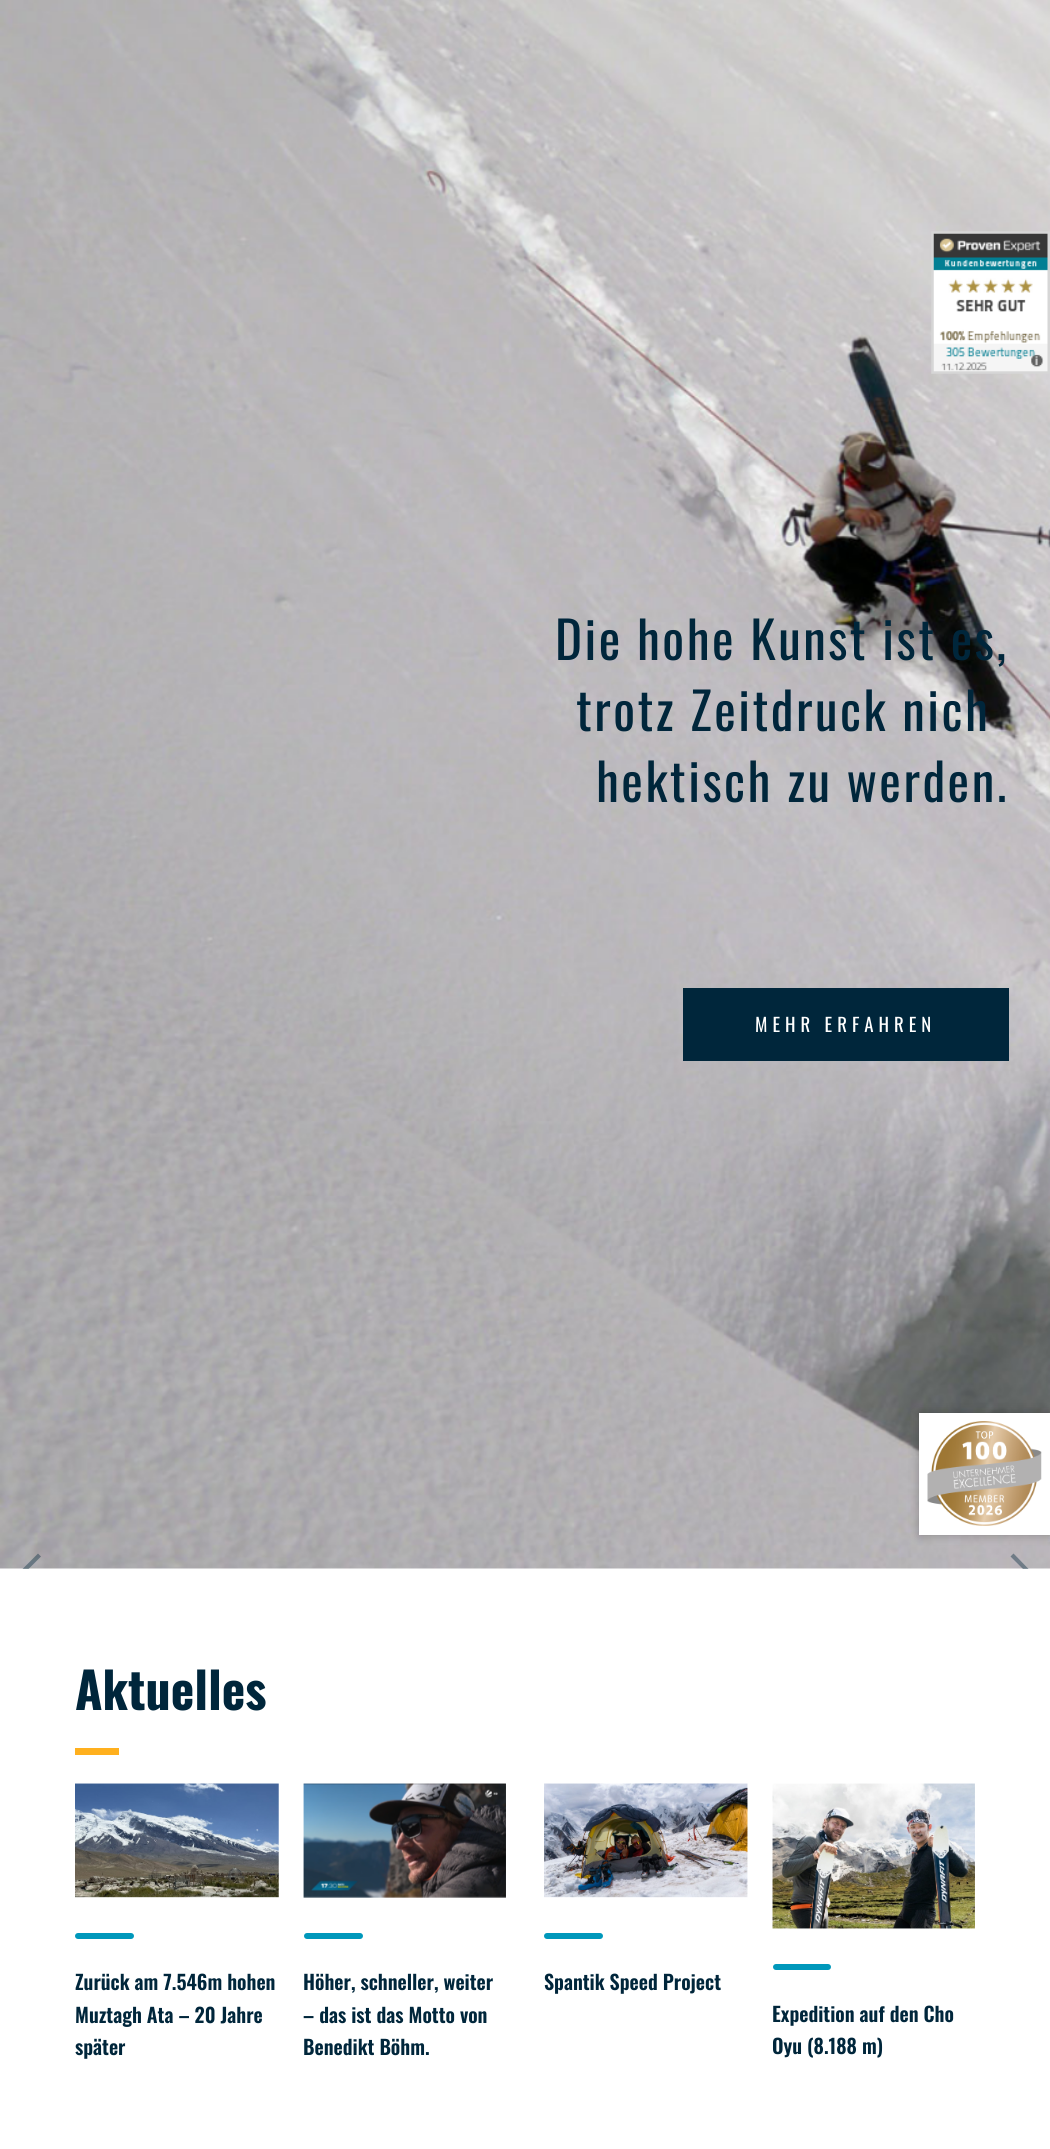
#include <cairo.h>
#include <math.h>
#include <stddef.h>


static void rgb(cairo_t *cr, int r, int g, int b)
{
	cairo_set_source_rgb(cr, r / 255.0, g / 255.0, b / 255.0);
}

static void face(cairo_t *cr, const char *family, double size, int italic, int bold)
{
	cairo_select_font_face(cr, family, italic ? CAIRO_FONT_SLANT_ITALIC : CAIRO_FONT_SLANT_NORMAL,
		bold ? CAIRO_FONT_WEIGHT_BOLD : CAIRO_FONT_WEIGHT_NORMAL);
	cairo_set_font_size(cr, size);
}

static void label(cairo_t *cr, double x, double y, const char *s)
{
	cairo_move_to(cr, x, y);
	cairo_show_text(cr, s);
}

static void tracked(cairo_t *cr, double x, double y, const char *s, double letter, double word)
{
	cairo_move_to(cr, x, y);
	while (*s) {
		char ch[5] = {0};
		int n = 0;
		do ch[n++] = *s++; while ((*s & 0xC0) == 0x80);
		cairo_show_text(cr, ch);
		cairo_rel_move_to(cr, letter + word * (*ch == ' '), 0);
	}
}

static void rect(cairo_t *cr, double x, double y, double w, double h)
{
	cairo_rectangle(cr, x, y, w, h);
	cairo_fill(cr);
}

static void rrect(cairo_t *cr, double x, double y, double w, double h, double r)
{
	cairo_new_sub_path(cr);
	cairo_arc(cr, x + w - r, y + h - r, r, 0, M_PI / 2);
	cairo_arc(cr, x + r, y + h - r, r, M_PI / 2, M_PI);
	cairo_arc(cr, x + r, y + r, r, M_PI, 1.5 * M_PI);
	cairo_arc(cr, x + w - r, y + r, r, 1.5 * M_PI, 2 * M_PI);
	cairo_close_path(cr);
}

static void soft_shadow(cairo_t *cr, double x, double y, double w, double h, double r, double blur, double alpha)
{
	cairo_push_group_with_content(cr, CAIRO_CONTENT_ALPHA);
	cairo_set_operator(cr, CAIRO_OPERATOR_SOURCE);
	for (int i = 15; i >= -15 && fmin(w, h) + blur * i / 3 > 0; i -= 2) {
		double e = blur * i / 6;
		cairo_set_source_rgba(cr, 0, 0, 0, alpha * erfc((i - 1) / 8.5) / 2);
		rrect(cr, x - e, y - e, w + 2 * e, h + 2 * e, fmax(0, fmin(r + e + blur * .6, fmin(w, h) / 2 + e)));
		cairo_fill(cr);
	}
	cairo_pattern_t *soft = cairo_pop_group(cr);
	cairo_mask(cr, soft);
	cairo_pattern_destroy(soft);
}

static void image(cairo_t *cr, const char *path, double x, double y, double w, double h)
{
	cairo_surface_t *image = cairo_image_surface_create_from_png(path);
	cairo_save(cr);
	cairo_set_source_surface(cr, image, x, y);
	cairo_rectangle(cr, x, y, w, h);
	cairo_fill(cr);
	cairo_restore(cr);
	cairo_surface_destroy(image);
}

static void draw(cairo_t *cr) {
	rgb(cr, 255, 255, 255);
	cairo_paint(cr);
	image(cr, "image1.png", 0, 0, 1050, 1569);
	image(cr, "image0.png", 931, 231, 119, 143);
	face(cr, "Oswald", 51.25, 0, 0);
	rgb(cr, 0, 38, 59);
	tracked(cr, 555, 660, "Die hohe Kunst ist es,", 2.5, 0);
	tracked(cr, 576, 731, "trotz Zeitdruck nich", 2.5, 0);
	tracked(cr, 596, 802, "hektisch zu werden.", 2.5, 0);
	rect(cr, 683, 988, 326, 73);
	face(cr, "Oswald", 18.75, 0, 0);
	rgb(cr, 255, 255, 255);
	tracked(cr, 755, 1032, "MEHR ERFAHREN", 5, 0);
	rgb(cr, 0, 0, 0);
	soft_shadow(cr, 919, 1413, 131, 122, 0, 5, 0.25);
	rgb(cr, 255, 255, 255);
	rect(cr, 919, 1413, 131, 122);
	image(cr, "image2.png", 927, 1421, 115, 105);
	cairo_save(cr);
	cairo_rectangle(cr, 0, 0, 1050, 1569);
	cairo_clip(cr);
	cairo_set_source_rgba(cr, 0, 0.149, 0.231, 0.4);
	cairo_new_path(cr);
	cairo_move_to(cr, 19, 1572.5);
	cairo_line_to(cr, 38, 1553.5);
	cairo_line_to(cr, 41, 1556.5);
	cairo_line_to(cr, 25, 1572.5);
	cairo_line_to(cr, 41, 1588);
	cairo_line_to(cr, 38, 1591);
	cairo_close_path(cr);
	cairo_fill(cr);
	cairo_new_path(cr);
	cairo_move_to(cr, 1032, 1572.5);
	cairo_line_to(cr, 1013.5, 1553.5);
	cairo_line_to(cr, 1010.5, 1556.5);
	cairo_line_to(cr, 1026.5, 1572.5);
	cairo_line_to(cr, 1010.5, 1588);
	cairo_line_to(cr, 1013.5, 1591);
	cairo_close_path(cr);
	cairo_fill(cr);
	cairo_restore(cr);
	face(cr, "Oswald", 50, 0, 1);
	rgb(cr, 0, 38, 59);
	label(cr, 75, 1710, "Aktuelles");
	rgb(cr, 255, 176, 30);
	rect(cr, 75, 1748, 44, 7);
	image(cr, "image3.png", 75, 1783, 204, 115);
	rgb(cr, 0, 152, 187);
	rrect(cr, 75, 1933, 59, 6, 3);
	cairo_fill(cr);
	face(cr, "Oswald SemiBold", 20, 0, 0);
	rgb(cr, 0, 38, 59);
	label(cr, 75, 1990, "Zurück am 7.546m hohen");
	label(cr, 75, 2023, "Muztagh Ata – 20 Jahre");
	label(cr, 75, 2055, "später");
	image(cr, "image4.png", 303, 1783, 203, 115);
	rgb(cr, 0, 152, 187);
	rrect(cr, 304, 1933, 59, 6, 3);
	cairo_fill(cr);
	rgb(cr, 0, 38, 59);
	label(cr, 303, 1990, "Höher, schneller, weiter");
	label(cr, 303, 2023, "– das ist das Motto von");
	label(cr, 303, 2055, "Benedikt Böhm.");
	image(cr, "image5.png", 544, 1783, 204, 115);
	rgb(cr, 0, 152, 187);
	rrect(cr, 544, 1933, 59, 6, 3);
	cairo_fill(cr);
	rgb(cr, 0, 38, 59);
	label(cr, 544, 1990, "Spantik Speed Project");
	image(cr, "image6.png", 772, 1783, 203, 146);
	rgb(cr, 0, 152, 187);
	rrect(cr, 773, 1964, 58, 6, 3);
	cairo_fill(cr);
	rgb(cr, 0, 38, 59);
	label(cr, 772, 2022, "Expedition auf den Cho");
	cairo_save(cr);
	cairo_rectangle(cr, 773, 1929, 202, 160);
	cairo_clip(cr);
	label(cr, 772, 2054, "Oyu (8.188 m)");
	cairo_restore(cr);
}

int main(void) {
	cairo_surface_t *surface = cairo_image_surface_create(CAIRO_FORMAT_RGB24, 1050, 2149);
	cairo_t *cr = cairo_create(surface);
	cairo_font_options_t *options = cairo_font_options_create();
	cairo_font_options_set_hint_metrics(options, CAIRO_HINT_METRICS_OFF);
	cairo_font_options_set_hint_style(options, CAIRO_HINT_STYLE_NONE);
	cairo_set_font_options(cr, options);
	cairo_set_miter_limit(cr, 4);
	draw(cr);
	cairo_surface_write_to_png(surface, "render.png");
	cairo_font_options_destroy(options);
	cairo_destroy(cr);
	cairo_surface_destroy(surface);
	return 0;
}
